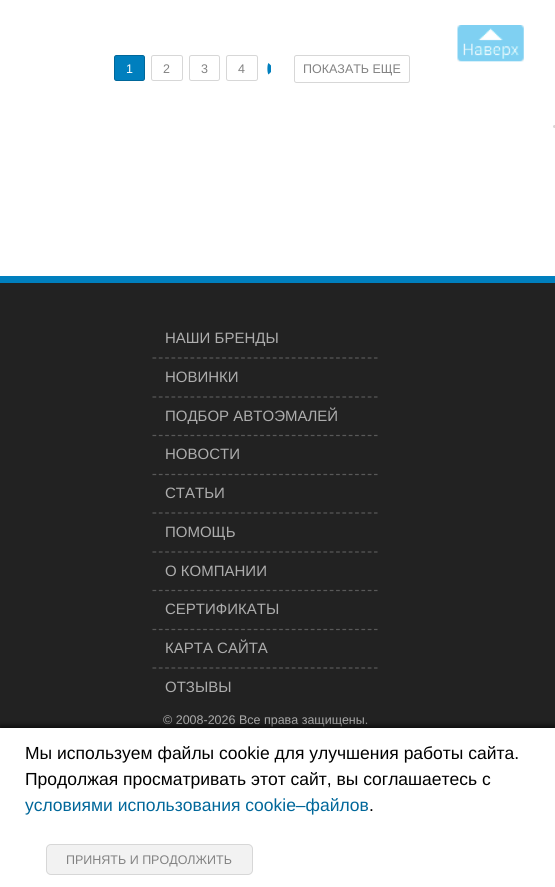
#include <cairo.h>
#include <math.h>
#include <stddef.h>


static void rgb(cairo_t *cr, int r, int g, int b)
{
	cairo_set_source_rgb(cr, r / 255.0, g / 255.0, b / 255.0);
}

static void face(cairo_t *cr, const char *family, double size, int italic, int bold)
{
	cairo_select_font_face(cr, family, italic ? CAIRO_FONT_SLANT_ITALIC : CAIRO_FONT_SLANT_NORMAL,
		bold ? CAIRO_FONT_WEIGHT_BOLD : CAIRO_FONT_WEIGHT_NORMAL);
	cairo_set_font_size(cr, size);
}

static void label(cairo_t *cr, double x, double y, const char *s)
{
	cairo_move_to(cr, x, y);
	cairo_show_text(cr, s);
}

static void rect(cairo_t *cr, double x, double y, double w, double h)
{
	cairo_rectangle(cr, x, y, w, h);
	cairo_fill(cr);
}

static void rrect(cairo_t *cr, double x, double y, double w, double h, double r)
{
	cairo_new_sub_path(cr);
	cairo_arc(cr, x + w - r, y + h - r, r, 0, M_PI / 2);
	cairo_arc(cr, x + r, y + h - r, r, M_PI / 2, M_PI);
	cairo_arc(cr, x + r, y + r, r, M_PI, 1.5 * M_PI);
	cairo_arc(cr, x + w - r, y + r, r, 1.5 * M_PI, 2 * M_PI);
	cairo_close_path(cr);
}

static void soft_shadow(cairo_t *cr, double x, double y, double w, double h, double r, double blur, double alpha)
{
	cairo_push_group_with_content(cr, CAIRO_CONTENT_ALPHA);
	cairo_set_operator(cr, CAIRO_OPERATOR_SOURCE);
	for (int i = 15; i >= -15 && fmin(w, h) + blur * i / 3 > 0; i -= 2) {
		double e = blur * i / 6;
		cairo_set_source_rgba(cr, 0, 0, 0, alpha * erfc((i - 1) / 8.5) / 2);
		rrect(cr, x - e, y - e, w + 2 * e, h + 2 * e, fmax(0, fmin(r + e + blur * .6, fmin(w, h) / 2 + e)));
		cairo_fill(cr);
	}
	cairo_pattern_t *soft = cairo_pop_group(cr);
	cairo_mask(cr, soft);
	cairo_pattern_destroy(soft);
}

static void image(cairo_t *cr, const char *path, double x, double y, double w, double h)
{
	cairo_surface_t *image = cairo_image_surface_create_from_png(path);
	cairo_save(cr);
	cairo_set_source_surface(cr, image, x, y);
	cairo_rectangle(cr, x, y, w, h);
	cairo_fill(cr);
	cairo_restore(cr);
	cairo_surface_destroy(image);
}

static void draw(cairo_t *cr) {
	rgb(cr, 255, 255, 255);
	cairo_paint(cr);
	image(cr, "image0.png", 457, 25, 67, 37);
	rgb(cr, 0, 127, 190);
	rrect(cr, 114.5, 55.5, 30, 25, 2);
	cairo_fill_preserve(cr);
	rgb(cr, 0, 103, 154);
	cairo_set_line_width(cr, 1);
	cairo_stroke(cr);
	face(cr, "Liberation Sans", 12.5, 0, 0);
	rgb(cr, 255, 255, 255);
	label(cr, 126, 73, "1");
	rrect(cr, 151.5, 55.5, 31, 25, 2);
	rgb(cr, 215, 215, 215);
	cairo_stroke(cr);
	rgb(cr, 130, 130, 130);
	label(cr, 163, 73, "2");
	rrect(cr, 189.5, 55.5, 30, 25, 2);
	rgb(cr, 215, 215, 215);
	cairo_stroke(cr);
	rgb(cr, 130, 130, 130);
	label(cr, 201, 73, "3");
	rrect(cr, 226.5, 55.5, 31, 25, 2);
	rgb(cr, 215, 215, 215);
	cairo_stroke(cr);
	rgb(cr, 130, 130, 130);
	label(cr, 238, 73, "4");
	rgb(cr, 0, 127, 190);
	cairo_new_path(cr);
	cairo_move_to(cr, 268.5, 63);
	cairo_line_to(cr, 271, 65.5);
	cairo_line_to(cr, 271, 72);
	cairo_line_to(cr, 268.5, 74.5);
	cairo_curve_to(cr, 267, 73, 267, 64.5, 268.5, 63);
	cairo_close_path(cr);
	cairo_fill(cr);
	rrect(cr, 294.5, 55.5, 115, 27, 2);
	rgb(cr, 215, 215, 215);
	cairo_stroke(cr);
	rgb(cr, 130, 130, 130);
	label(cr, 303, 73, "ПОКАЗАТЬ ЕЩЕ");
	rgb(cr, 215, 215, 215);
	cairo_new_path(cr);
	cairo_arc(cr, 554.5, 126.5, 1.5, 0, 2 * M_PI);
	cairo_fill(cr);
	rgb(cr, 34, 34, 34);
	rect(cr, 0, 283, 555, 445);
	rgb(cr, 0, 127, 190);
	rect(cr, 0, 276, 555, 7);
	face(cr, "Liberation Sans", 15, 0, 0);
	rgb(cr, 173, 173, 173);
	label(cr, 165, 343, "НАШИ БРЕНДЫ");
	cairo_new_path(cr);
	cairo_move_to(cr, 152.5, 358);
	cairo_line_to(cr, 377.5, 358);
	rgb(cr, 89, 89, 89);
	cairo_set_line_width(cr, 1.2);
	cairo_set_dash(cr, (double[]){3.75, 2.58}, 2, 0);
	cairo_stroke(cr);
	rgb(cr, 173, 173, 173);
	label(cr, 165, 382, "НОВИНКИ");
	cairo_new_path(cr);
	cairo_move_to(cr, 152.5, 397);
	cairo_line_to(cr, 377.5, 397);
	rgb(cr, 89, 89, 89);
	cairo_stroke(cr);
	rgb(cr, 173, 173, 173);
	label(cr, 165, 421, "ПОДБОР АВТОЭМАЛЕЙ");
	cairo_new_path(cr);
	cairo_move_to(cr, 152.5, 435.5);
	cairo_line_to(cr, 377.5, 435.5);
	rgb(cr, 89, 89, 89);
	cairo_stroke(cr);
	rgb(cr, 173, 173, 173);
	label(cr, 165, 459, "НОВОСТИ");
	cairo_new_path(cr);
	cairo_move_to(cr, 152.5, 474.5);
	cairo_line_to(cr, 377.5, 474.5);
	rgb(cr, 89, 89, 89);
	cairo_stroke(cr);
	rgb(cr, 173, 173, 173);
	label(cr, 165, 498, "СТАТЬИ");
	cairo_new_path(cr);
	cairo_move_to(cr, 152.5, 513);
	cairo_line_to(cr, 377.5, 513);
	rgb(cr, 89, 89, 89);
	cairo_stroke(cr);
	rgb(cr, 173, 173, 173);
	label(cr, 165, 537, "ПОМОЩЬ");
	cairo_new_path(cr);
	cairo_move_to(cr, 152.5, 552);
	cairo_line_to(cr, 377.5, 552);
	rgb(cr, 89, 89, 89);
	cairo_stroke(cr);
	rgb(cr, 173, 173, 173);
	label(cr, 165, 576, "О КОМПАНИИ");
	cairo_new_path(cr);
	cairo_move_to(cr, 152.5, 590.5);
	cairo_line_to(cr, 377.5, 590.5);
	rgb(cr, 89, 89, 89);
	cairo_stroke(cr);
	rgb(cr, 173, 173, 173);
	label(cr, 165, 614, "СЕРТИФИКАТЫ");
	cairo_new_path(cr);
	cairo_move_to(cr, 152.5, 629.5);
	cairo_line_to(cr, 377.5, 629.5);
	rgb(cr, 89, 89, 89);
	cairo_stroke(cr);
	rgb(cr, 173, 173, 173);
	label(cr, 165, 653, "КАРТА САЙТА");
	cairo_new_path(cr);
	cairo_move_to(cr, 152.5, 668);
	cairo_line_to(cr, 377.5, 668);
	rgb(cr, 89, 89, 89);
	cairo_stroke(cr);
	rgb(cr, 173, 173, 173);
	label(cr, 165, 692, "ОТЗЫВЫ");
	face(cr, "Liberation Sans", 12.5, 0, 0);
	label(cr, 163, 724, "© 2008-2026 Все права защищены.");
	rgb(cr, 0, 0, 0);
	soft_shadow(cr, 0, 726, 555, 160, 0, 3, 0.75);
	rgb(cr, 255, 255, 255);
	rect(cr, 0, 728, 555, 159);
	face(cr, "Liberation Sans", 17.5, 0, 0);
	rgb(cr, 0, 0, 0);
	label(cr, 25, 759, "Мы используем файлы cookie для улучшения работы сайта.");
	label(cr, 25, 785, "Продолжая просматривать этот сайт, вы соглашаетесь с");
	rgb(cr, 0, 103, 154);
	label(cr, 25, 811, "условиями использования cookie–файлов");
	rgb(cr, 0, 0, 0);
	label(cr, 369, 811, ".");
	rgb(cr, 242, 242, 242);
	rrect(cr, 46.5, 844.5, 206, 30, 4.5);
	cairo_fill_preserve(cr);
	rgb(cr, 215, 215, 215);
	cairo_set_line_width(cr, 1);
	cairo_set_dash(cr, NULL, 0, 0);
	cairo_stroke(cr);
	face(cr, "Liberation Sans", 12.5, 0, 0);
	rgb(cr, 130, 130, 130);
	label(cr, 66, 864, "ПРИНЯТЬ И ПРОДОЛЖИТЬ");
}

int main(void) {
	cairo_surface_t *surface = cairo_image_surface_create(CAIRO_FORMAT_RGB24, 555, 887);
	cairo_t *cr = cairo_create(surface);
	cairo_font_options_t *options = cairo_font_options_create();
	cairo_font_options_set_hint_metrics(options, CAIRO_HINT_METRICS_OFF);
	cairo_font_options_set_hint_style(options, CAIRO_HINT_STYLE_NONE);
	cairo_set_font_options(cr, options);
	cairo_set_miter_limit(cr, 4);
	draw(cr);
	cairo_surface_write_to_png(surface, "render.png");
	cairo_font_options_destroy(options);
	cairo_destroy(cr);
	cairo_surface_destroy(surface);
	return 0;
}
